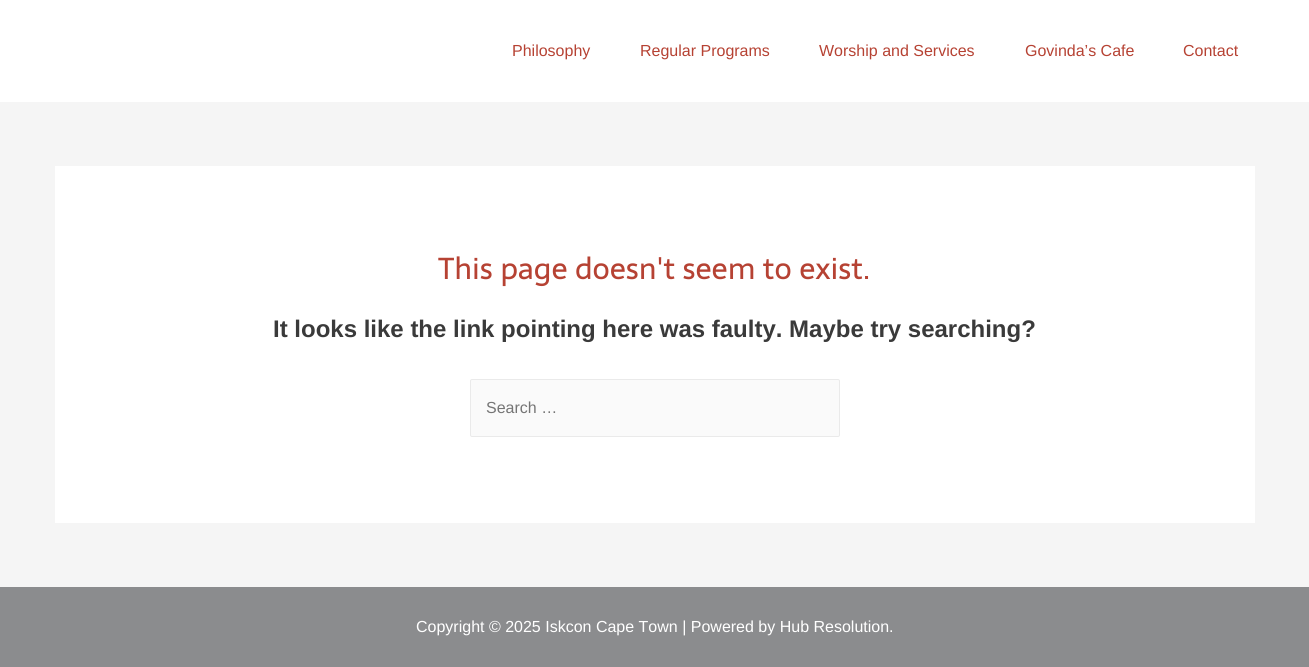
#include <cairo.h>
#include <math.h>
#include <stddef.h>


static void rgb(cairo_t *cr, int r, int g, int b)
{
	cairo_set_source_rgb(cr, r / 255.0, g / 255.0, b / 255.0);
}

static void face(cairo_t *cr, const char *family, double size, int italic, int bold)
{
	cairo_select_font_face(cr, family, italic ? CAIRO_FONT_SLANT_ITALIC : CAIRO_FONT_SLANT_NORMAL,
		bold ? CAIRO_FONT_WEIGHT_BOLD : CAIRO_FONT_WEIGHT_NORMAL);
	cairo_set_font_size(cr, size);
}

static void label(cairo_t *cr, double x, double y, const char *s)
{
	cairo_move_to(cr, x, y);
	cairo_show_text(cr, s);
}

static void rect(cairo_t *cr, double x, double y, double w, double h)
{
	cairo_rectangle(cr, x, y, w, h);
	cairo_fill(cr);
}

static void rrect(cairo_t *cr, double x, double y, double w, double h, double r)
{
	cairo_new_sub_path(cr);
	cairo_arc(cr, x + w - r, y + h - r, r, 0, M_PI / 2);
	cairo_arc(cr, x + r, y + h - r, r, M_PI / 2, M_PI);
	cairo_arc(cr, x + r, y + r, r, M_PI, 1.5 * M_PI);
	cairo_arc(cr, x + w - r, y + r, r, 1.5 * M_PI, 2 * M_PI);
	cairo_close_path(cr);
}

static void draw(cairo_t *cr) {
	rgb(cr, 245, 245, 245);
	cairo_paint(cr);
	rgb(cr, 255, 255, 255);
	rect(cr, 0, 0, 1309, 102);
	face(cr, "Liberation Sans", 16, 0, 0);
	rgb(cr, 182, 66, 51);
	label(cr, 512, 56, "Philosophy");
	label(cr, 640, 56, "Regular Programs");
	label(cr, 819, 56, "Worship and Services");
	label(cr, 1025, 56, "Govinda’s Cafe");
	label(cr, 1183, 56, "Contact");
	rgb(cr, 255, 255, 255);
	rect(cr, 55, 166, 1200, 357);
	face(cr, "Sarala", 30, 0, 0);
	rgb(cr, 182, 66, 51);
	label(cr, 438, 279, "This page doesn't seem to exist.");
	face(cr, "Liberation Sans", 24, 0, 1);
	rgb(cr, 58, 58, 58);
	label(cr, 273, 337, "It looks like the link pointing here was faulty. Maybe try searching?");
	rgb(cr, 250, 250, 250);
	rrect(cr, 470.5, 379.5, 369, 57, 1.5);
	cairo_fill_preserve(cr);
	rgb(cr, 234, 234, 234);
	cairo_set_line_width(cr, 1);
	cairo_stroke(cr);
	face(cr, "Liberation Sans", 16, 0, 0);
	rgb(cr, 117, 117, 117);
	label(cr, 486, 413, "Search …");
	rgb(cr, 139, 140, 142);
	rect(cr, 0, 587, 1309, 80);
	rgb(cr, 255, 255, 255);
	label(cr, 416, 632, "Copyright © 2025 Iskcon Cape Town | Powered by Hub Resolution.");
}

int main(void) {
	cairo_surface_t *surface = cairo_image_surface_create(CAIRO_FORMAT_RGB24, 1309, 667);
	cairo_t *cr = cairo_create(surface);
	cairo_font_options_t *options = cairo_font_options_create();
	cairo_font_options_set_hint_metrics(options, CAIRO_HINT_METRICS_OFF);
	cairo_font_options_set_hint_style(options, CAIRO_HINT_STYLE_NONE);
	cairo_set_font_options(cr, options);
	cairo_set_miter_limit(cr, 4);
	draw(cr);
	cairo_surface_write_to_png(surface, "render.png");
	cairo_font_options_destroy(options);
	cairo_destroy(cr);
	cairo_surface_destroy(surface);
	return 0;
}
